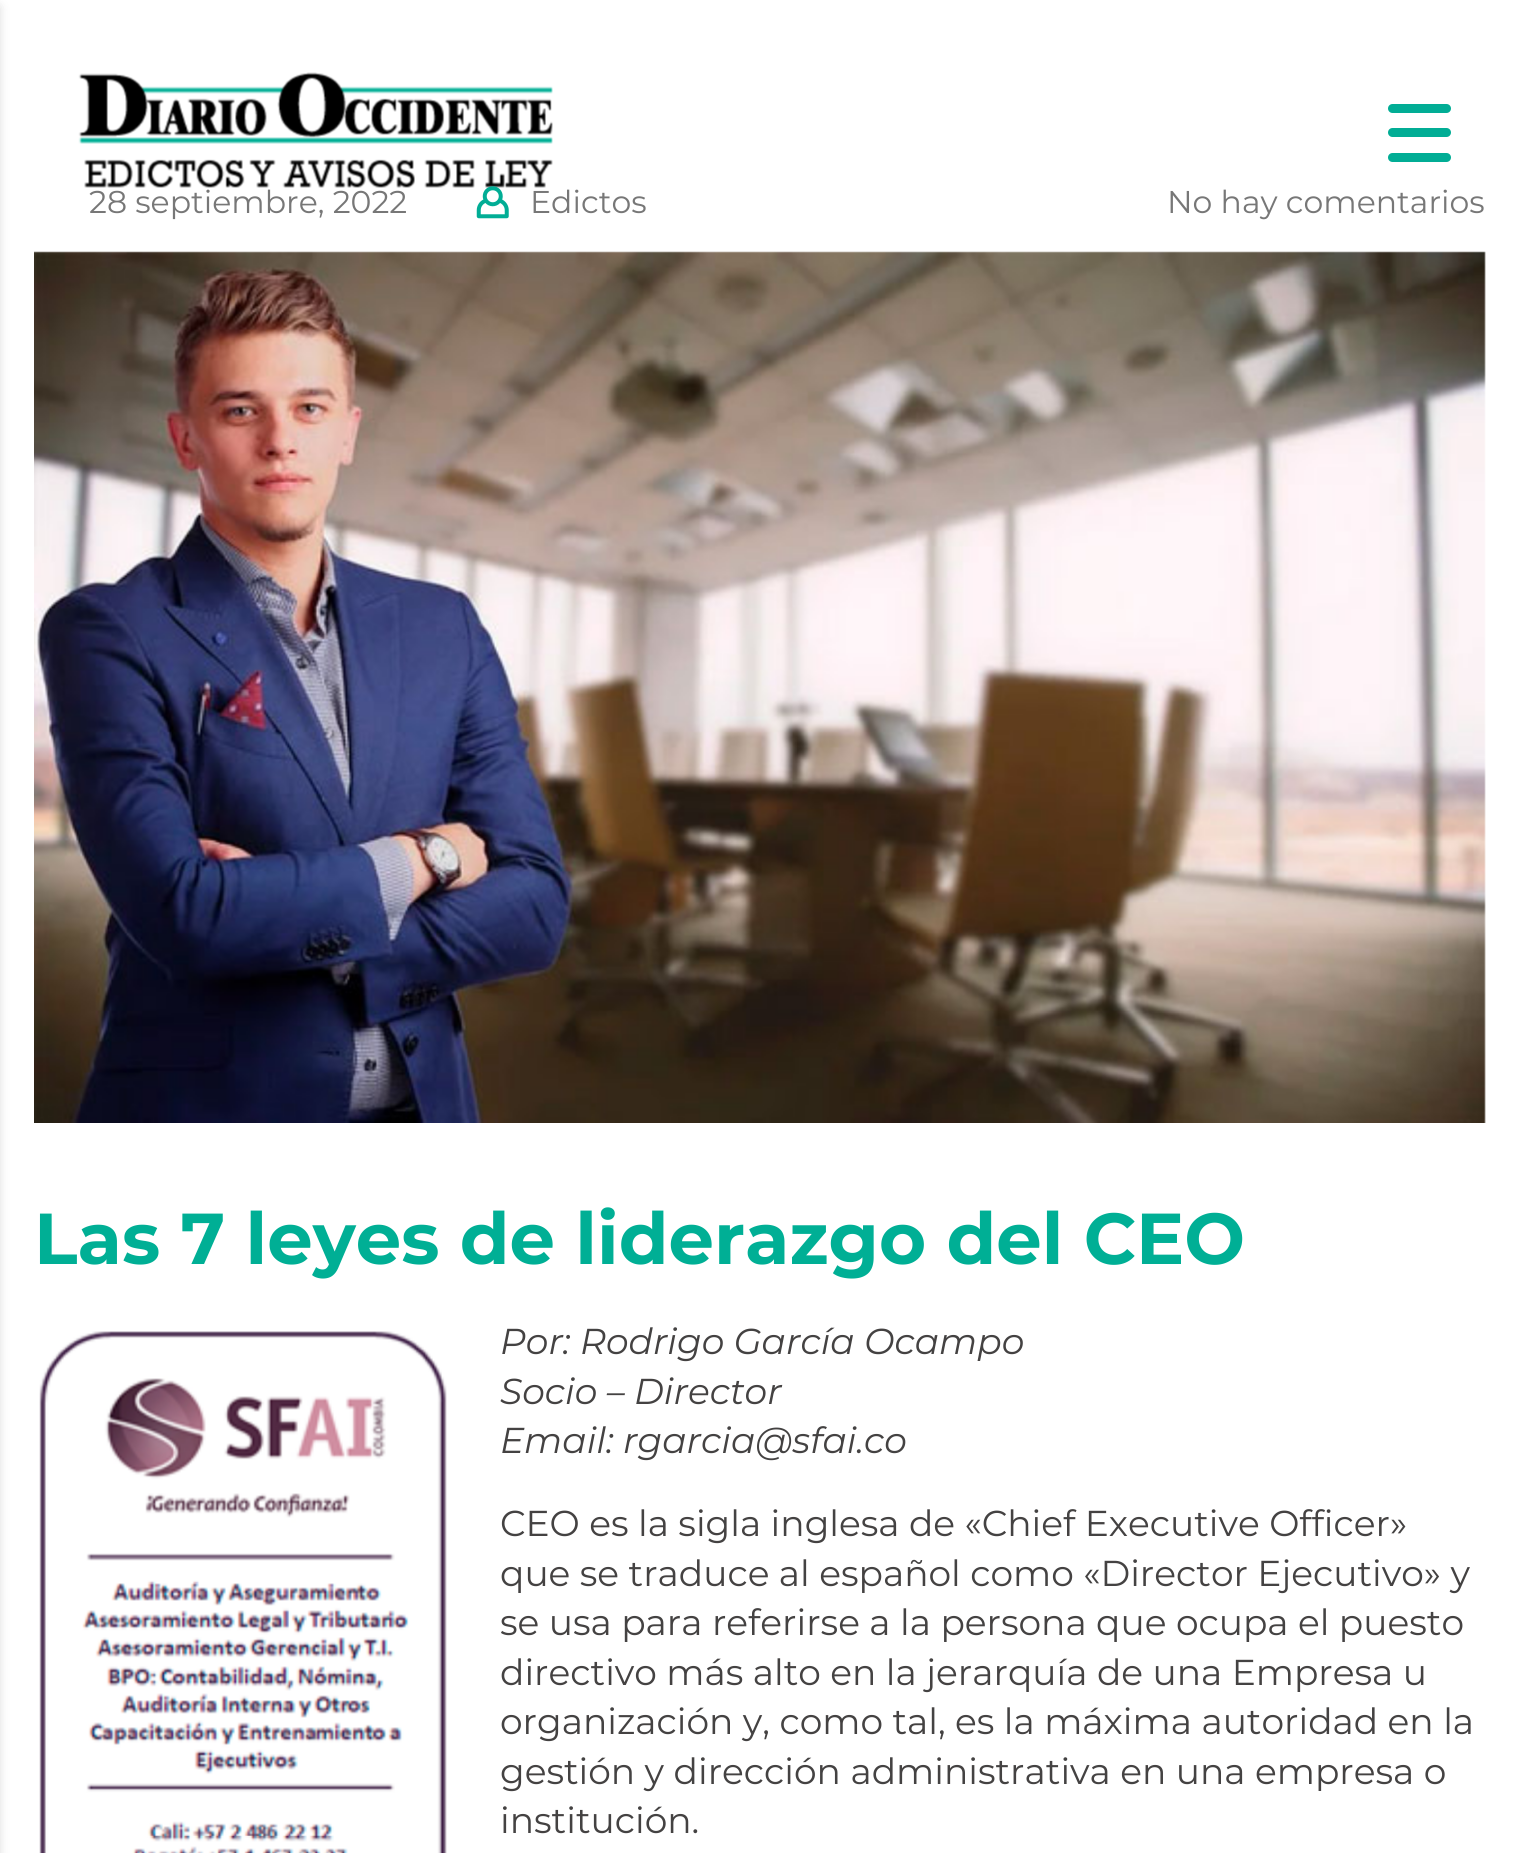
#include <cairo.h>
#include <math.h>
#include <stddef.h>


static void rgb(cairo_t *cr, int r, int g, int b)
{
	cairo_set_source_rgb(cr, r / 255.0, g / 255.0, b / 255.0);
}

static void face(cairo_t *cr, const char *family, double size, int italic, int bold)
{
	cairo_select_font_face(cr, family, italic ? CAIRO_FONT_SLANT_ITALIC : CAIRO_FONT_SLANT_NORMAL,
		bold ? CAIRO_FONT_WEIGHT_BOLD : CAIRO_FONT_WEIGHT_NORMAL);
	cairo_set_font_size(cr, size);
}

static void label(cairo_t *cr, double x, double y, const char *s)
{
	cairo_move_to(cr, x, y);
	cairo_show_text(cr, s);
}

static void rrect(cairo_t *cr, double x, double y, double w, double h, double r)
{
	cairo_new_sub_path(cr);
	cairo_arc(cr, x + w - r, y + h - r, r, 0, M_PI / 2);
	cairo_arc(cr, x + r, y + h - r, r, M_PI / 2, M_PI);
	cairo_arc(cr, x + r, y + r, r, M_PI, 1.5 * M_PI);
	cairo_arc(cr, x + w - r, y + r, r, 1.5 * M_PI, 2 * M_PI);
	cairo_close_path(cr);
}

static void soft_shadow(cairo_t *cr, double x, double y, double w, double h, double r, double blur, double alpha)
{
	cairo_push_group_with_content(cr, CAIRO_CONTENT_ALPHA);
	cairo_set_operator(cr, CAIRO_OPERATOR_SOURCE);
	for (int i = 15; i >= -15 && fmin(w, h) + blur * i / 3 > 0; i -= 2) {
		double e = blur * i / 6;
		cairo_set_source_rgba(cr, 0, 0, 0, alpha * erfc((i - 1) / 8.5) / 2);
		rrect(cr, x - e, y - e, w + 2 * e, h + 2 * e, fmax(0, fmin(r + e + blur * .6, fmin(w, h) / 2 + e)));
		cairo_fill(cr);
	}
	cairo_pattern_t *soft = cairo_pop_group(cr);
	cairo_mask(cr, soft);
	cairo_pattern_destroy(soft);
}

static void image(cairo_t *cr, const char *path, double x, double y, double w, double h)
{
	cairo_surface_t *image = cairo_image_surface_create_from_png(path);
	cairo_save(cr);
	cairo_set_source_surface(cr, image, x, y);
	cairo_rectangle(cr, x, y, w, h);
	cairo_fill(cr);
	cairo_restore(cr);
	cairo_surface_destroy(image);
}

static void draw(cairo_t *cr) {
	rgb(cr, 255, 255, 255);
	cairo_paint(cr);
	rgb(cr, 0, 0, 0);
	soft_shadow(cr, -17, 7, 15, 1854, 0, 5.5, 0.2);
	image(cr, "image0.png", 78, 72, 475, 116);
	rgb(cr, 1, 173, 149);
	rrect(cr, 1388, 104, 63, 9, 4.5);
	cairo_fill(cr);
	rrect(cr, 1388, 128, 63, 9, 4.5);
	cairo_fill(cr);
	rrect(cr, 1388, 153, 63, 9, 4.5);
	cairo_fill(cr);
	face(cr, "Montserrat", 31.5, 0, 0);
	rgb(cr, 119, 119, 119);
	label(cr, 89, 213, "28 septiembre, 2022");
	image(cr, "image1.png", 476, 186, 33, 33);
	label(cr, 530, 213, "Edictos");
	label(cr, 1167, 213, "No hay comentarios");
	image(cr, "image2.png", 34, 251, 1452, 872);
	face(cr, "Montserrat", 72, 0, 1);
	rgb(cr, 0, 175, 149);
	label(cr, 34, 1264, "Las 7 leyes de liderazgo del CEO");
	image(cr, "image3.png", 39, 1331, 408, 522);
	face(cr, "Montserrat Thin", 36, 1, 0);
	rgb(cr, 68, 66, 66);
	label(cr, 500, 1354, "Por: Rodrigo García Ocampo");
	label(cr, 500, 1404, "Socio – Director");
	label(cr, 500, 1453, "Email: rgarcia@sfai.co");
	face(cr, "Montserrat", 36, 0, 0);
	label(cr, 500, 1536, "CEO es la sigla inglesa de «Chief Executive Officer»");
	label(cr, 500, 1586, "que se traduce al español como «Director Ejecutivo» y");
	label(cr, 500, 1635, "se usa para referirse a la persona que ocupa el puesto");
	label(cr, 500, 1685, "directivo más alto en la jerarquía de una Empresa u");
	label(cr, 500, 1734, "organización y, como tal, es la máxima autoridad en la");
	label(cr, 500, 1784, "gestión y dirección administrativa en una empresa o");
	label(cr, 500, 1833, "institución.");
}

int main(void) {
	cairo_surface_t *surface = cairo_image_surface_create(CAIRO_FORMAT_RGB24, 1517, 1853);
	cairo_t *cr = cairo_create(surface);
	cairo_font_options_t *options = cairo_font_options_create();
	cairo_font_options_set_hint_metrics(options, CAIRO_HINT_METRICS_OFF);
	cairo_font_options_set_hint_style(options, CAIRO_HINT_STYLE_NONE);
	cairo_set_font_options(cr, options);
	cairo_set_miter_limit(cr, 4);
	draw(cr);
	cairo_surface_write_to_png(surface, "render.png");
	cairo_font_options_destroy(options);
	cairo_destroy(cr);
	cairo_surface_destroy(surface);
	return 0;
}
